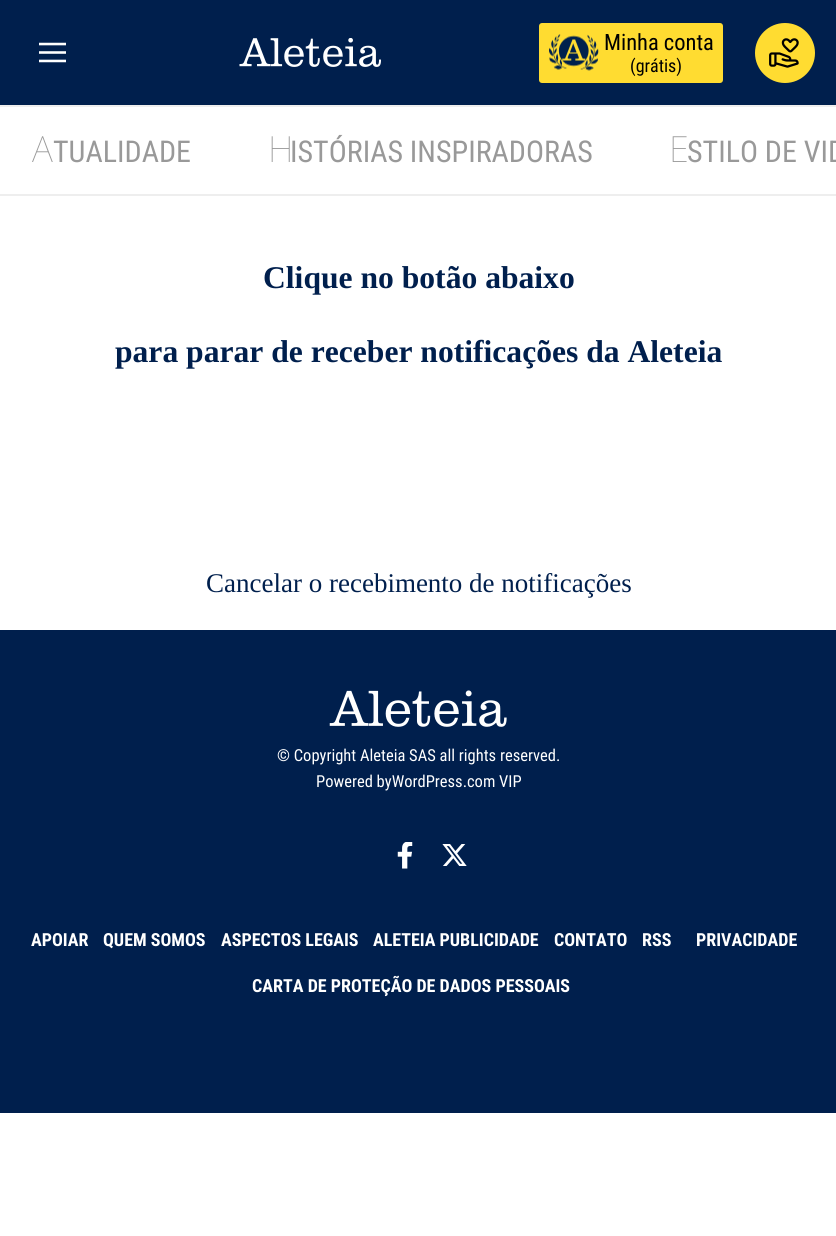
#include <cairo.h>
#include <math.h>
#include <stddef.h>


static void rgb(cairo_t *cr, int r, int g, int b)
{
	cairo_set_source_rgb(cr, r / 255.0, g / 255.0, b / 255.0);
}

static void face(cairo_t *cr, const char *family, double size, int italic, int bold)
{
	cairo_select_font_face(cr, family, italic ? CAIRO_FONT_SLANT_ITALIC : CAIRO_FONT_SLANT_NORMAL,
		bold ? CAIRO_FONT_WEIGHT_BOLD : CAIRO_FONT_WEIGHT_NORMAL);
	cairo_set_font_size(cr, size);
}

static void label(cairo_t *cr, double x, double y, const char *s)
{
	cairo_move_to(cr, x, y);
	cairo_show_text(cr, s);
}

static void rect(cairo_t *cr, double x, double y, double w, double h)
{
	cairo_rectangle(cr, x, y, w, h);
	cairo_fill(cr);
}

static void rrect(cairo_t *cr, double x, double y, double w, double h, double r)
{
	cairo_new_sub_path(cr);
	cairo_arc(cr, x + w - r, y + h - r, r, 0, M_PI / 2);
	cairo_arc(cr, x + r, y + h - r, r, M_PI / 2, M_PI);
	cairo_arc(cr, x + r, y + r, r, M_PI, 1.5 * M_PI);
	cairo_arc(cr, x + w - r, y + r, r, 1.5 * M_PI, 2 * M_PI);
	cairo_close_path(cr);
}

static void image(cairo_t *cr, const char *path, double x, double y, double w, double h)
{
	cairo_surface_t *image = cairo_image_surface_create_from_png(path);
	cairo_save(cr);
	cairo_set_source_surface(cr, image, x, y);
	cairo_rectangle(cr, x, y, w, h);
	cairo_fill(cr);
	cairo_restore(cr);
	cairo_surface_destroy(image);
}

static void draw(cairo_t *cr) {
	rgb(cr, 255, 255, 255);
	cairo_paint(cr);
	rgb(cr, 0, 31, 77);
	rect(cr, 0, 0, 836, 105);
	image(cr, "image0.png", 39, 42, 27, 21);
	image(cr, "image1.png", 239, 38, 142, 29);
	rgb(cr, 255, 220, 49);
	rrect(cr, 539, 23, 184, 60, 3);
	cairo_fill(cr);
	image(cr, "image2.png", 549, 34, 50, 37);
	face(cr, "Roboto Condensed", 22.5, 0, 0);
	rgb(cr, 0, 0, 0);
	label(cr, 604, 50, "Minha conta");
	face(cr, "Roboto Condensed", 18, 0, 0);
	label(cr, 630, 72, "(grátis)");
	rgb(cr, 255, 220, 49);
	cairo_new_path(cr);
	cairo_arc(cr, 785, 53, 30, 0, 2 * M_PI);
	cairo_fill(cr);
	image(cr, "image3.png", 769, 38, 30, 30);
	rgb(cr, 238, 238, 238);
	rect(cr, 0, 105, 836, 2);
	rect(cr, 0, 194, 836, 2);
	face(cr, "Noto Sans Thin", 36, 0, 0);
	rgb(cr, 153, 153, 153);
	label(cr, 32, 162, "A");
	face(cr, "Roboto Condensed", 30, 0, 0);
	label(cr, 53, 162, "TUALIDADE");
	face(cr, "Noto Sans Thin", 36, 0, 0);
	label(cr, 268, 162, "H");
	face(cr, "Roboto Condensed", 30, 0, 0);
	label(cr, 290, 162, "ISTÓRIAS INSPIRADORAS");
	face(cr, "Noto Sans Thin", 36, 0, 0);
	label(cr, 669, 162, "E");
	face(cr, "Roboto Condensed", 30, 0, 0);
	label(cr, 687, 162, "STILO DE VID");
	face(cr, "Liberation Serif", 31.6, 0, 1);
	rgb(cr, 0, 31, 77);
	label(cr, 263, 288, "Clique no botão abaixo");
	label(cr, 115, 362, "para parar de receber notificações da Aleteia");
	face(cr, "Liberation Serif", 27, 0, 0);
	label(cr, 206, 592, "Cancelar o recebimento de notificações");
	rect(cr, 0, 630, 836, 483);
	image(cr, "image4.png", 329, 690, 178, 37);
	face(cr, "Roboto Condensed", 16.5, 0, 0);
	rgb(cr, 255, 255, 255);
	label(cr, 277, 761, "© Copyright Aleteia SAS all rights reserved.");
	label(cr, 316, 787, "Powered byWordPress.com VIP");
	image(cr, "image5.png", 397, 842, 16, 27);
	image(cr, "image6.png", 442, 844, 25, 22);
	face(cr, "Roboto Condensed", 18, 0, 1);
	label(cr, 31, 946, "APOIAR");
	label(cr, 103, 946, "QUEM SOMOS");
	label(cr, 221, 946, "ASPECTOS LEGAIS");
	label(cr, 373, 946, "ALETEIA PUBLICIDADE");
	label(cr, 554, 946, "CONTATO");
	label(cr, 642, 946, "RSS");
	label(cr, 696, 946, "PRIVACIDADE");
	label(cr, 252, 992, "CARTA DE PROTEÇÃO DE DADOS PESSOAIS");
}

int main(void) {
	cairo_surface_t *surface = cairo_image_surface_create(CAIRO_FORMAT_RGB24, 836, 1236);
	cairo_t *cr = cairo_create(surface);
	cairo_font_options_t *options = cairo_font_options_create();
	cairo_font_options_set_hint_metrics(options, CAIRO_HINT_METRICS_OFF);
	cairo_font_options_set_hint_style(options, CAIRO_HINT_STYLE_NONE);
	cairo_set_font_options(cr, options);
	cairo_set_miter_limit(cr, 4);
	draw(cr);
	cairo_surface_write_to_png(surface, "render.png");
	cairo_font_options_destroy(options);
	cairo_destroy(cr);
	cairo_surface_destroy(surface);
	return 0;
}
